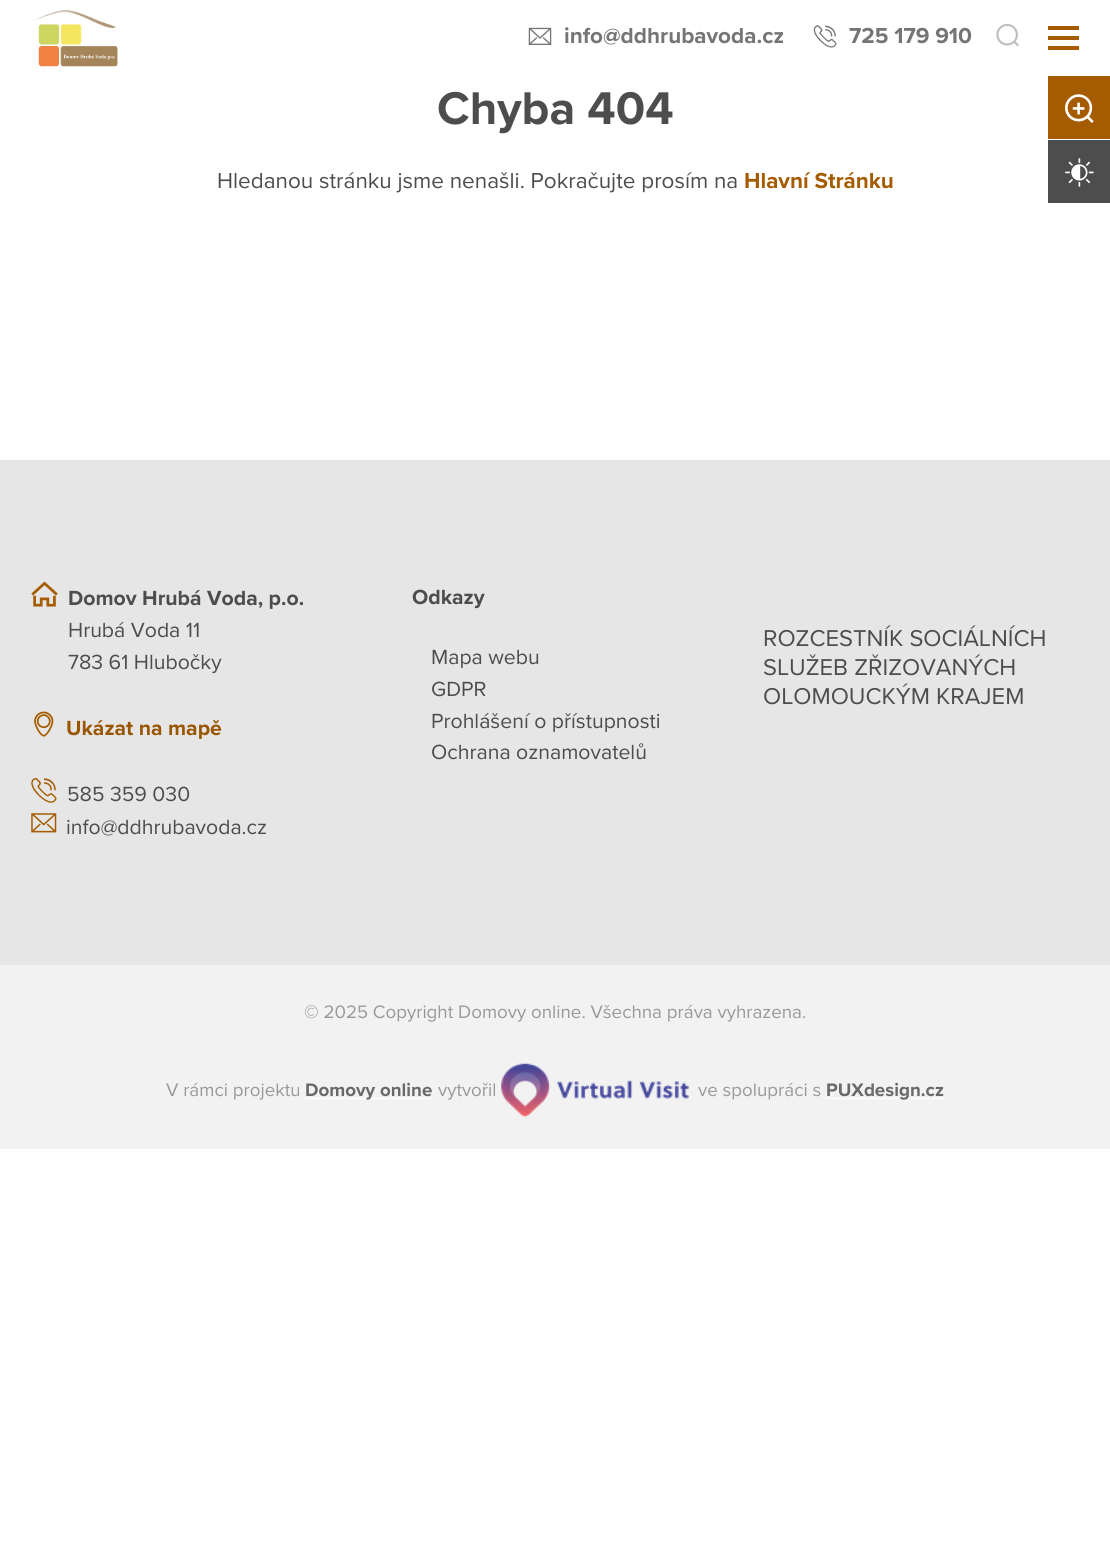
#include <cairo.h>
#include <math.h>
#include <stddef.h>


static void rgb(cairo_t *cr, int r, int g, int b)
{
	cairo_set_source_rgb(cr, r / 255.0, g / 255.0, b / 255.0);
}

static void face(cairo_t *cr, const char *family, double size, int italic, int bold)
{
	cairo_select_font_face(cr, family, italic ? CAIRO_FONT_SLANT_ITALIC : CAIRO_FONT_SLANT_NORMAL,
		bold ? CAIRO_FONT_WEIGHT_BOLD : CAIRO_FONT_WEIGHT_NORMAL);
	cairo_set_font_size(cr, size);
}

static void label(cairo_t *cr, double x, double y, const char *s)
{
	cairo_move_to(cr, x, y);
	cairo_show_text(cr, s);
}

static void rect(cairo_t *cr, double x, double y, double w, double h)
{
	cairo_rectangle(cr, x, y, w, h);
	cairo_fill(cr);
}

static void image(cairo_t *cr, const char *path, double x, double y, double w, double h)
{
	cairo_surface_t *image = cairo_image_surface_create_from_png(path);
	cairo_save(cr);
	cairo_set_source_surface(cr, image, x, y);
	cairo_rectangle(cr, x, y, w, h);
	cairo_fill(cr);
	cairo_restore(cr);
	cairo_surface_destroy(image);
}

static void draw(cairo_t *cr) {
	rgb(cr, 255, 255, 255);
	cairo_paint(cr);
	image(cr, "image0.png", 33, 9, 85, 58);
	image(cr, "image1.png", 528, 27, 24, 18);
	face(cr, "Proxima Nova", 22.5, 0, 1);
	rgb(cr, 117, 117, 117);
	label(cr, 564, 43, "info@ddhrubavoda.cz");
	image(cr, "image2.png", 813, 25, 24, 23);
	label(cr, 849, 43, "725 179 910");
	image(cr, "image3.png", 996, 23, 23, 24);
	rgb(cr, 165, 91, 0);
	rect(cr, 1048, 36, 31, 4);
	rect(cr, 1048, 26, 31, 4);
	rect(cr, 1048, 46, 31, 4);
	face(cr, "Proxima Nova", 47.5, 0, 1);
	rgb(cr, 77, 77, 77);
	label(cr, 437, 124, "Chyba 404");
	face(cr, "Proxima Nova", 22.5, 0, 0);
	label(cr, 217, 188, "Hledanou stránku jsme nenašli. Pokračujte prosím na");
	face(cr, "Proxima Nova", 22.5, 0, 1);
	rgb(cr, 165, 91, 0);
	label(cr, 744, 188, "Hlavní Stránku");
	rect(cr, 1048, 76, 62, 63);
	image(cr, "image4.png", 1065, 94, 29, 29);
	rgb(cr, 77, 77, 77);
	rect(cr, 1048, 140, 62, 63);
	image(cr, "image5.png", 1065, 158, 29, 29);
	rgb(cr, 230, 230, 230);
	rect(cr, 0, 460, 1110, 505);
	image(cr, "image6.png", 31, 581, 27, 26);
	face(cr, "Proxima Nova", 21.25, 0, 1);
	rgb(cr, 77, 77, 77);
	label(cr, 68, 605, "Domov Hrubá Voda, p.o.");
	face(cr, "Proxima Nova", 21.25, 0, 0);
	label(cr, 68, 637, "Hrubá Voda 11");
	label(cr, 68, 669, "783 61 Hlubočky");
	image(cr, "image7.png", 34, 711, 20, 26);
	face(cr, "Proxima Nova", 21.25, 0, 1);
	rgb(cr, 154, 85, 0);
	label(cr, 66, 735, "Ukázat na mapě");
	image(cr, "image8.png", 31, 777, 26, 26);
	face(cr, "Proxima Nova", 21.25, 0, 0);
	rgb(cr, 77, 77, 77);
	label(cr, 67, 801, "585 359 030");
	image(cr, "image9.png", 31, 813, 26, 20);
	label(cr, 66, 834, "info@ddhrubavoda.cz");
	face(cr, "Proxima Nova", 21.25, 0, 1);
	label(cr, 412, 604, "Odkazy");
	face(cr, "Proxima Nova", 21.25, 0, 0);
	label(cr, 431, 664, "Mapa webu");
	label(cr, 431, 696, "GDPR");
	label(cr, 431, 728, "Prohlášení o přístupnosti");
	label(cr, 431, 759, "Ochrana oznamovatelů");
	face(cr, "Proxima Nova", 23.75, 0, 0);
	label(cr, 763, 646, "ROZCESTNÍK SOCIÁLNÍCH");
	label(cr, 763, 675, "SLUŽEB ZŘIZOVANÝCH");
	label(cr, 763, 704, "OLOMOUCKÝM KRAJEM");
	rgb(cr, 242, 242, 242);
	rect(cr, 0, 965, 1110, 184);
	face(cr, "Proxima Nova", 18.75, 0, 0);
	rgb(cr, 153, 153, 153);
	label(cr, 304, 1018, "© 2025 Copyright Domovy online. Všechna práva vyhrazena.");
	label(cr, 166, 1096, "V rámci projektu");
	rgb(cr, 255, 255, 255);
	rect(cr, 305, 1098, 128, 1);
	face(cr, "Proxima Nova", 18.75, 0, 1);
	rgb(cr, 105, 105, 105);
	label(cr, 305, 1096, "Domovy online");
	face(cr, "Proxima Nova", 18.75, 0, 0);
	rgb(cr, 153, 153, 153);
	label(cr, 438, 1096, "vytvořil");
	image(cr, "image10.png", 501, 1063, 188, 54);
	label(cr, 698, 1096, "ve spolupráci s");
	rgb(cr, 255, 255, 255);
	rect(cr, 826, 1098, 118, 1);
	face(cr, "Proxima Nova", 18.75, 0, 1);
	rgb(cr, 105, 105, 105);
	label(cr, 826, 1096, "PUXdesign.cz");
}

int main(void) {
	cairo_surface_t *surface = cairo_image_surface_create(CAIRO_FORMAT_RGB24, 1110, 1555);
	cairo_t *cr = cairo_create(surface);
	cairo_font_options_t *options = cairo_font_options_create();
	cairo_font_options_set_hint_metrics(options, CAIRO_HINT_METRICS_OFF);
	cairo_font_options_set_hint_style(options, CAIRO_HINT_STYLE_NONE);
	cairo_set_font_options(cr, options);
	cairo_set_miter_limit(cr, 4);
	draw(cr);
	cairo_surface_write_to_png(surface, "render.png");
	cairo_font_options_destroy(options);
	cairo_destroy(cr);
	cairo_surface_destroy(surface);
	return 0;
}
